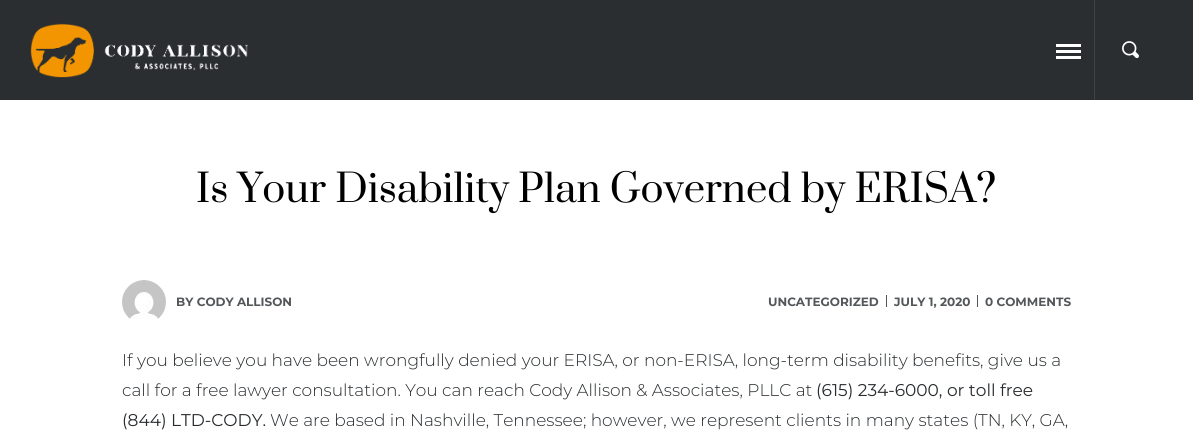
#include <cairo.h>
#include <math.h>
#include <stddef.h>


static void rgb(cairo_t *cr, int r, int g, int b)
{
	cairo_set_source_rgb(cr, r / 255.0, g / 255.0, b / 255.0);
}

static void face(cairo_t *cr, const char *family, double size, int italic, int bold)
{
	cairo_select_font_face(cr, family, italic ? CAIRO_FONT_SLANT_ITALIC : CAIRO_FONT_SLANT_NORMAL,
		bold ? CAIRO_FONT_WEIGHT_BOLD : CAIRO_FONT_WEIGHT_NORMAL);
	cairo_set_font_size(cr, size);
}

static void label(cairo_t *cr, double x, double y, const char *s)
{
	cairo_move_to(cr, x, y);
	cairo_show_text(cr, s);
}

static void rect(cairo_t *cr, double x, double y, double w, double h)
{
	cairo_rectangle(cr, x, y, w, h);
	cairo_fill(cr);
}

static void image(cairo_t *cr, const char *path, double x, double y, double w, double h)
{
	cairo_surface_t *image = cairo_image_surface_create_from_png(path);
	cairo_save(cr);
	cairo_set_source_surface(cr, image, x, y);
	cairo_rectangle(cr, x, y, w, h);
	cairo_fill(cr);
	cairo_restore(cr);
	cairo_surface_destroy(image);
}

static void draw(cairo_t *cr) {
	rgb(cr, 255, 255, 255);
	cairo_paint(cr);
	rgb(cr, 42, 46, 49);
	rect(cr, 0, 0, 1193, 100);
	image(cr, "image0.png", 30, 23, 219, 55);
	rgb(cr, 255, 255, 255);
	rect(cr, 1056, 50, 25, 3);
	rect(cr, 1056, 44, 25, 3);
	rect(cr, 1056, 56, 25, 3);
	rgb(cr, 63, 67, 70);
	rect(cr, 1094, 0, 1, 100);
	image(cr, "image1.png", 1122, 41, 17, 18);
	face(cr, "Prata", 38, 0, 0);
	rgb(cr, 0, 0, 0);
	label(cr, 196, 202, "Is Your Disability Plan Governed by ERISA?");
	image(cr, "image2.png", 122, 280, 44, 39);
	face(cr, "Montserrat", 12, 0, 1);
	rgb(cr, 83, 87, 90);
	label(cr, 176, 306, "BY CODY ALLISON");
	label(cr, 768, 306, "UNCATEGORIZED");
	rect(cr, 886, 295, 1, 12);
	label(cr, 894, 306, "JULY 1, 2020");
	rect(cr, 977, 295, 1, 12);
	label(cr, 985, 306, "0 COMMENTS");
	face(cr, "Montserrat Light", 17, 0, 0);
	rgb(cr, 39, 43, 46);
	label(cr, 122, 366, "If you believe you have been wrongfully denied your ERISA, or non-ERISA, long-term disability benefits, give us a");
	label(cr, 122, 396, "call for a free lawyer consultation. You can reach Cody Allison & Associates, PLLC at");
	face(cr, "Montserrat", 17, 0, 0);
	label(cr, 816, 396, "(615) 234-6000, or toll free");
	label(cr, 122, 426, "(844) LTD-CODY.");
	face(cr, "Montserrat Light", 17, 0, 0);
	label(cr, 270, 426, "We are based in Nashville, Tennessee; however, we represent clients in many states (TN, KY, GA,");
}

int main(void) {
	cairo_surface_t *surface = cairo_image_surface_create(CAIRO_FORMAT_RGB24, 1193, 446);
	cairo_t *cr = cairo_create(surface);
	cairo_font_options_t *options = cairo_font_options_create();
	cairo_font_options_set_hint_metrics(options, CAIRO_HINT_METRICS_OFF);
	cairo_font_options_set_hint_style(options, CAIRO_HINT_STYLE_NONE);
	cairo_set_font_options(cr, options);
	cairo_set_miter_limit(cr, 4);
	draw(cr);
	cairo_surface_write_to_png(surface, "render.png");
	cairo_font_options_destroy(options);
	cairo_destroy(cr);
	cairo_surface_destroy(surface);
	return 0;
}
